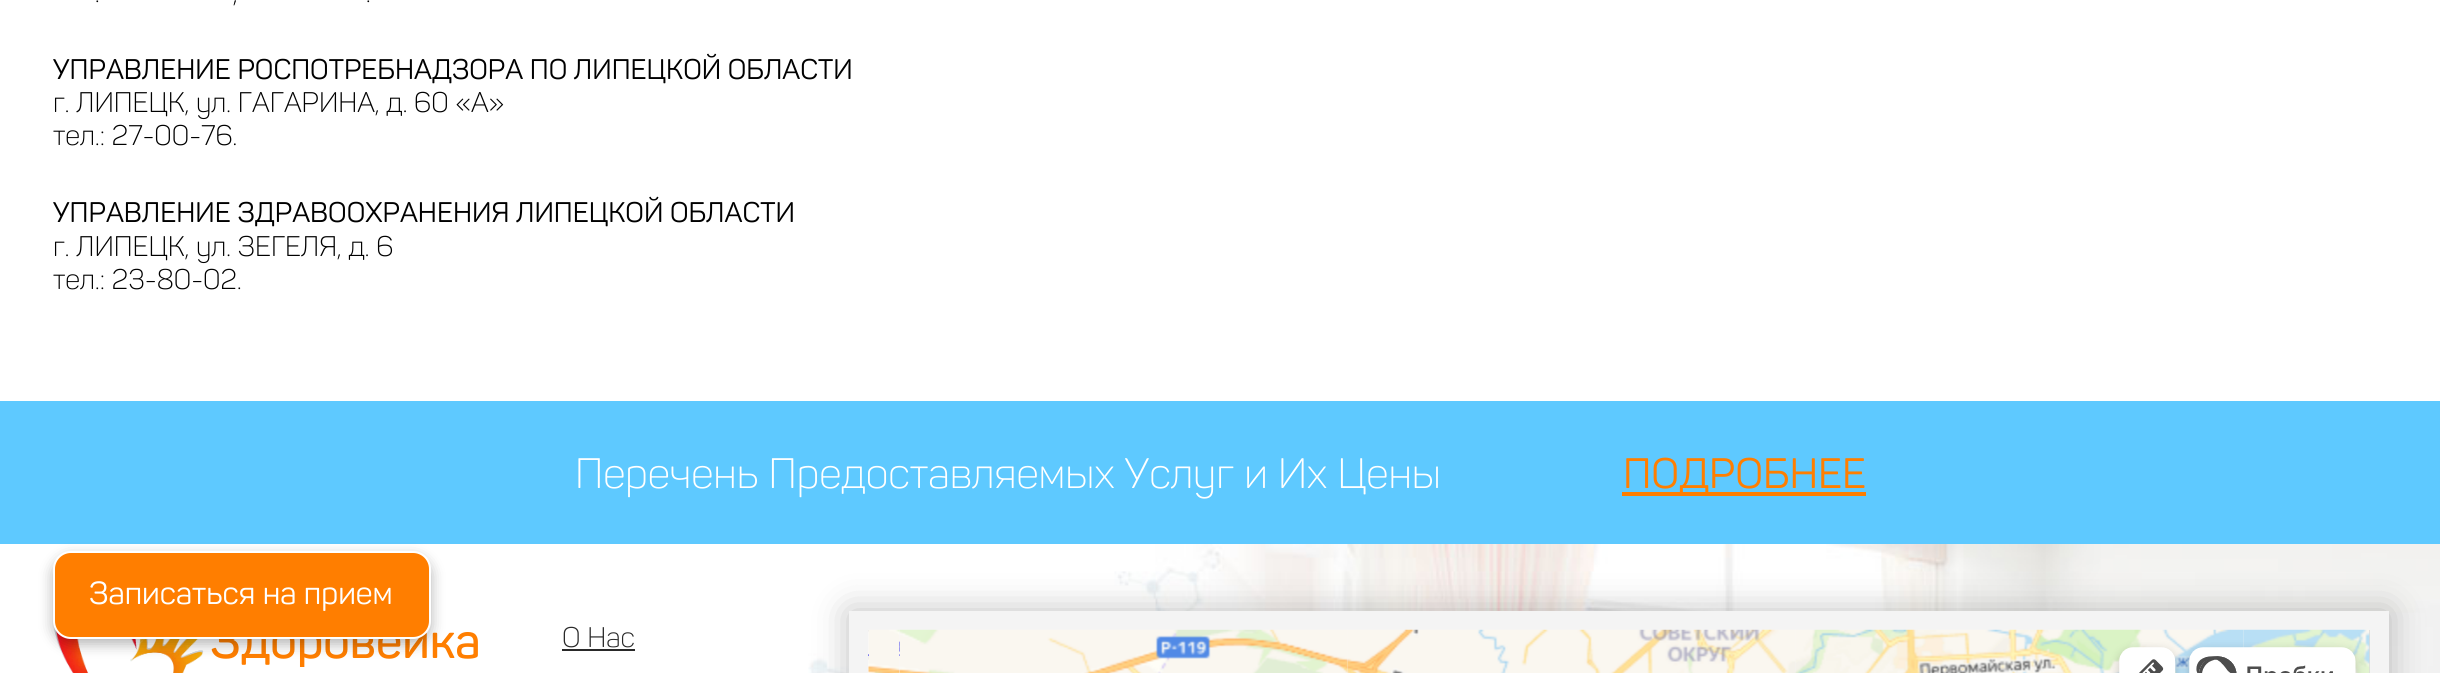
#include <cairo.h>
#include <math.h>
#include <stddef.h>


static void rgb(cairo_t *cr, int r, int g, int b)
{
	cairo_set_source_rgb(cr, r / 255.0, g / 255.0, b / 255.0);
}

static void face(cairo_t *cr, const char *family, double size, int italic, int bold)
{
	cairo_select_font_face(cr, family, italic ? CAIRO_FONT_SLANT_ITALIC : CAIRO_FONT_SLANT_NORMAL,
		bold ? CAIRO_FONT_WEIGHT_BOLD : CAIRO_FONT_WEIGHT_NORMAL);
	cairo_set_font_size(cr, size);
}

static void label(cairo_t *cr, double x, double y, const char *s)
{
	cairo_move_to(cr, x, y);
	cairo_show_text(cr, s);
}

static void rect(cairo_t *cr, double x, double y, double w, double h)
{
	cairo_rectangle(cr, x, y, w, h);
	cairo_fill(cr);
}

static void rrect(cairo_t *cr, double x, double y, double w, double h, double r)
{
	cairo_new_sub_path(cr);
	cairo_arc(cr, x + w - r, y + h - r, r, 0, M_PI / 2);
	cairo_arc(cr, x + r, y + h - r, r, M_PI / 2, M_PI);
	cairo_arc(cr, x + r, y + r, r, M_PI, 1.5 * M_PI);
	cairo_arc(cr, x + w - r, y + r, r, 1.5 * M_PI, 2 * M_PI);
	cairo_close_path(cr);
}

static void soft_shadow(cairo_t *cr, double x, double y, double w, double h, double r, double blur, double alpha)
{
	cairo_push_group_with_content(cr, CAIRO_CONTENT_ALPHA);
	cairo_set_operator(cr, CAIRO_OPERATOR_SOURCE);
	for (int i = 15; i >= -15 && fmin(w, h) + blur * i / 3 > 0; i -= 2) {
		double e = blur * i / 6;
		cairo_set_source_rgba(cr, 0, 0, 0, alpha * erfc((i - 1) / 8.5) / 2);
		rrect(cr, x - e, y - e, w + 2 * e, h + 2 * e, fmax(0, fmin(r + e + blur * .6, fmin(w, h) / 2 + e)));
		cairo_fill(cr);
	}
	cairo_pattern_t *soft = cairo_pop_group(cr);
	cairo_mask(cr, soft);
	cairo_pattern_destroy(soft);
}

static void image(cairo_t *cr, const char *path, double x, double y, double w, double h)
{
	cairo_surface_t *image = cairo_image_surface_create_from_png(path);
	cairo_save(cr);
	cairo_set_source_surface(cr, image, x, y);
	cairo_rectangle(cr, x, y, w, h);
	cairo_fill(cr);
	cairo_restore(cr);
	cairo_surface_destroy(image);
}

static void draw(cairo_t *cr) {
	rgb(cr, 255, 255, 255);
	cairo_paint(cr);
	face(cr, "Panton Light", 28, 0, 0);
	rgb(cr, 0, 0, 0);
	label(cr, 95, 2, ".");
	label(cr, 233, 2, ",");
	label(cr, 366, 2, ".");
	face(cr, "Panton", 28, 0, 0);
	label(cr, 53, 79, "УПРАВЛЕНИЕ РОСПОТРЕБНАДЗОРА ПО ЛИПЕЦКОЙ ОБЛАСТИ");
	face(cr, "Panton Light", 28, 0, 0);
	label(cr, 53, 112, "г. ЛИПЕЦК, ул. ГАГАРИНА, д. 60 «А»");
	label(cr, 53, 145, "тел.: 27-00-76.");
	face(cr, "Panton", 28, 0, 0);
	label(cr, 53, 222, "УПРАВЛЕНИЕ ЗДРАВООХРАНЕНИЯ ЛИПЕЦКОЙ ОБЛАСТИ");
	face(cr, "Panton Light", 28, 0, 0);
	label(cr, 53, 256, "г. ЛИПЕЦК, ул. ЗЕГЕЛЯ, д. 6");
	label(cr, 53, 289, "тел.: 23-80-02.");
	rgb(cr, 94, 201, 255);
	rect(cr, 0, 401, 2440, 143);
	face(cr, "Panton Light", 42, 0, 0);
	rgb(cr, 255, 255, 255);
	label(cr, 575, 488, "Перечень Предоставляемых Услуг и Их Цены");
	rgb(cr, 255, 126, 0);
	rect(cr, 1622, 492, 244, 4);
	face(cr, "Panton", 42, 0, 0);
	label(cr, 1623, 488, "ПОДРОБНЕЕ");
	image(cr, "image0.png", 808, 544, 1632, 129);
	image(cr, "image1.png", 53, 621, 151, 52);
	cairo_save(cr);
	cairo_rectangle(cr, 210, 618, 285, 49);
	cairo_clip(cr);
	face(cr, "Panton SemiBold", 49, 0, 0);
	label(cr, 210, 658, "Здоровейка");
	cairo_restore(cr);
	face(cr, "Panton Light", 28, 0, 0);
	rgb(cr, 41, 41, 41);
	label(cr, 562, 647, "О Нас");
	rect(cr, 562, 649, 73, 2);
	rgb(cr, 0, 0, 0);
	soft_shadow(cr, 849, 611, 1540, 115, 0, 17.5, 0.25);
	cairo_rectangle(cr, 858.5, 620.5, 1521, 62);
	rgb(cr, 244, 244, 244);
	cairo_set_line_width(cr, 19);
	cairo_stroke(cr);
	image(cr, "image2.png", 868, 629, 1502, 44);
	rgb(cr, 0, 0, 0);
	soft_shadow(cr, 53, 557, 378, 87, 18, 7, 0.3);
	rgb(cr, 255, 126, 0);
	rrect(cr, 54, 552, 376, 86, 17);
	cairo_fill_preserve(cr);
	rgb(cr, 255, 255, 255);
	cairo_set_line_width(cr, 2);
	cairo_stroke(cr);
	face(cr, "Panton", 31.5, 0, 0);
	label(cr, 89, 604, "Записаться на прием");
}

int main(void) {
	cairo_surface_t *surface = cairo_image_surface_create(CAIRO_FORMAT_RGB24, 2440, 673);
	cairo_t *cr = cairo_create(surface);
	cairo_font_options_t *options = cairo_font_options_create();
	cairo_font_options_set_hint_metrics(options, CAIRO_HINT_METRICS_OFF);
	cairo_font_options_set_hint_style(options, CAIRO_HINT_STYLE_NONE);
	cairo_set_font_options(cr, options);
	cairo_set_miter_limit(cr, 4);
	draw(cr);
	cairo_surface_write_to_png(surface, "render.png");
	cairo_font_options_destroy(options);
	cairo_destroy(cr);
	cairo_surface_destroy(surface);
	return 0;
}
